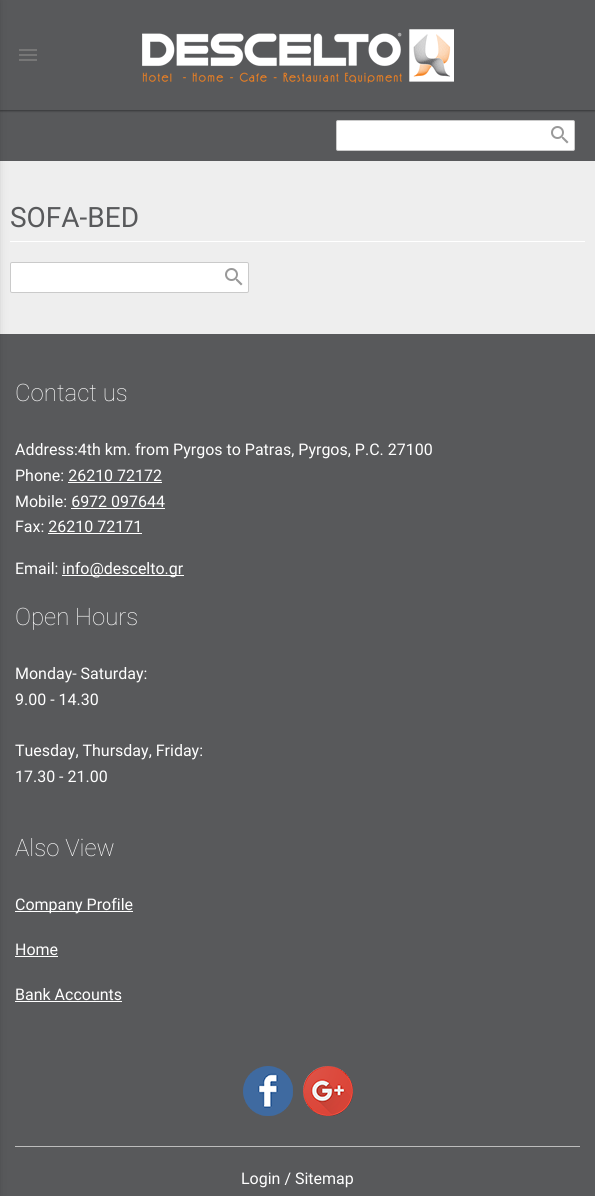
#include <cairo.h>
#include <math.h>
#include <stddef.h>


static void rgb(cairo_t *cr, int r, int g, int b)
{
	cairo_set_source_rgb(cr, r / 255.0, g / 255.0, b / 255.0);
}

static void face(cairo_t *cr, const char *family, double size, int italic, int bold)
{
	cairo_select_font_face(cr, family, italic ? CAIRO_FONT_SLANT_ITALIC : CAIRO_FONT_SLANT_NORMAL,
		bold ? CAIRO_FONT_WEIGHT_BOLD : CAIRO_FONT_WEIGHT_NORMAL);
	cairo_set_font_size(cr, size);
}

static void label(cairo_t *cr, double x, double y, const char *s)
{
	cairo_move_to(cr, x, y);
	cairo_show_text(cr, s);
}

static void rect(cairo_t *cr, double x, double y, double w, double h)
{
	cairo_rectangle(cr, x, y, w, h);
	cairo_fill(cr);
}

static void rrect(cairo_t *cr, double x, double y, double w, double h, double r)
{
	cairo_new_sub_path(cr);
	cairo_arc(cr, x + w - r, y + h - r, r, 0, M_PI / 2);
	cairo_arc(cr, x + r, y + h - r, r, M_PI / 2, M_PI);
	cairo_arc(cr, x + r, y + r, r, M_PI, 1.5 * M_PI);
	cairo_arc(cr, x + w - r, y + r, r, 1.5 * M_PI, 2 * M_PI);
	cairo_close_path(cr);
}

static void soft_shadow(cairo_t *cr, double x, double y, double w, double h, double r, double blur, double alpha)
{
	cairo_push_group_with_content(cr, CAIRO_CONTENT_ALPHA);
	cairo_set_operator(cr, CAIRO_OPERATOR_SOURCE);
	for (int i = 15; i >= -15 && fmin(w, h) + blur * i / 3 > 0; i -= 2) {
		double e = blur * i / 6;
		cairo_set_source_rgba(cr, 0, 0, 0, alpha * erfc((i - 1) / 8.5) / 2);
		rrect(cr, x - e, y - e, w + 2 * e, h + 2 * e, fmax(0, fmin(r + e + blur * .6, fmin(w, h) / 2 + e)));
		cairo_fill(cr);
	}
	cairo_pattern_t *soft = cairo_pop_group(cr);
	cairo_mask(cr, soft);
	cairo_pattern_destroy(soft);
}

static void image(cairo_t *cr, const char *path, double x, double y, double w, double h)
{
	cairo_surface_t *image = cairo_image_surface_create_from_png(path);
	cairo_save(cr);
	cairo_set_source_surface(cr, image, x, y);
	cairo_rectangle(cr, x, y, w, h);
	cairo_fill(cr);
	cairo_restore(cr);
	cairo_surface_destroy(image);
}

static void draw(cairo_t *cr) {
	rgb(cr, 238, 238, 238);
	cairo_paint(cr);
	rgb(cr, 88, 89, 91);
	rect(cr, 0, 110, 595, 51);
	rgb(cr, 0, 0, 0);
	soft_shadow(cr, 0, 1, 595, 110, 0, 1, 0.4);
	rgb(cr, 88, 89, 91);
	rect(cr, 0, 0, 595, 110);
	image(cr, "image0.png", 19, 49, 18, 12);
	image(cr, "image1.png", 142, 29, 312, 54);
	rgb(cr, 255, 255, 255);
	rect(cr, 10, 241, 575, 1);
	rrect(cr, 10.5, 262.5, 238, 30, 1.5);
	cairo_fill_preserve(cr);
	rgb(cr, 202, 202, 202);
	cairo_set_line_width(cr, 1);
	cairo_stroke(cr);
	rgb(cr, 88, 89, 91);
	rect(cr, 0, 334, 595, 862);
	rgb(cr, 0, 0, 0);
	soft_shadow(cr, -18, 0, 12, 1196, 0, 6, 0.4);
	rgb(cr, 255, 255, 255);
	rrect(cr, 336.5, 120.5, 238, 30, 1.5);
	cairo_fill_preserve(cr);
	rgb(cr, 202, 202, 202);
	cairo_stroke(cr);
	image(cr, "image2.png", 551, 126, 18, 18);
	face(cr, "Roboto", 28, 0, 0);
	rgb(cr, 88, 89, 91);
	label(cr, 10, 227, "SOFA-BED");
	image(cr, "image2.png", 225, 268, 18, 18);
	face(cr, "Roboto Thin", 24, 0, 0);
	rgb(cr, 255, 255, 255);
	label(cr, 15, 401, "Contact us");
	face(cr, "Roboto", 16, 0, 0);
	label(cr, 15, 455, "Address:4th km. from Pyrgos to Patras, Pyrgos, P.C. 27100");
	label(cr, 15, 481, "Phone: 26210 72172");
	rect(cr, 68, 482, 94, 1);
	label(cr, 15, 507, "Mobile: 6972 097644");
	rect(cr, 71, 508, 94, 1);
	label(cr, 15, 532, "Fax: 26210 72171");
	rect(cr, 48, 533, 94, 1);
	label(cr, 15, 574, "Email:");
	rect(cr, 62, 575, 122, 1);
	label(cr, 62, 574, "info@descelto.gr");
	face(cr, "Roboto Thin", 24, 0, 0);
	label(cr, 15, 625, "Open Hours");
	face(cr, "Roboto", 16, 0, 0);
	label(cr, 15, 679, "Monday- Saturday:");
	label(cr, 15, 705, "9.00 - 14.30");
	label(cr, 15, 756, "Tuesday, Thursday, Friday:");
	label(cr, 15, 782, "17.30 - 21.00");
	face(cr, "Roboto Thin", 24, 0, 0);
	label(cr, 15, 856, "Also View");
	rect(cr, 15, 911, 118, 1);
	face(cr, "Roboto", 16, 0, 0);
	label(cr, 15, 910, "Company Profile");
	label(cr, 15, 955, "Home");
	rect(cr, 15, 956, 43, 1);
	label(cr, 15, 1000, "Bank Accounts");
	rect(cr, 15, 1001, 107, 1);
	rgb(cr, 189, 189, 189);
	rect(cr, 15, 1146, 565, 1);
	image(cr, "image3.png", 243, 1066, 50, 50);
	image(cr, "image4.png", 303, 1066, 50, 50);
	rgb(cr, 255, 255, 255);
	label(cr, 241, 1184, "Login / Sitemap");
}

int main(void) {
	cairo_surface_t *surface = cairo_image_surface_create(CAIRO_FORMAT_RGB24, 595, 1196);
	cairo_t *cr = cairo_create(surface);
	cairo_font_options_t *options = cairo_font_options_create();
	cairo_font_options_set_hint_metrics(options, CAIRO_HINT_METRICS_OFF);
	cairo_font_options_set_hint_style(options, CAIRO_HINT_STYLE_NONE);
	cairo_set_font_options(cr, options);
	cairo_set_miter_limit(cr, 4);
	draw(cr);
	cairo_surface_write_to_png(surface, "render.png");
	cairo_font_options_destroy(options);
	cairo_destroy(cr);
	cairo_surface_destroy(surface);
	return 0;
}
